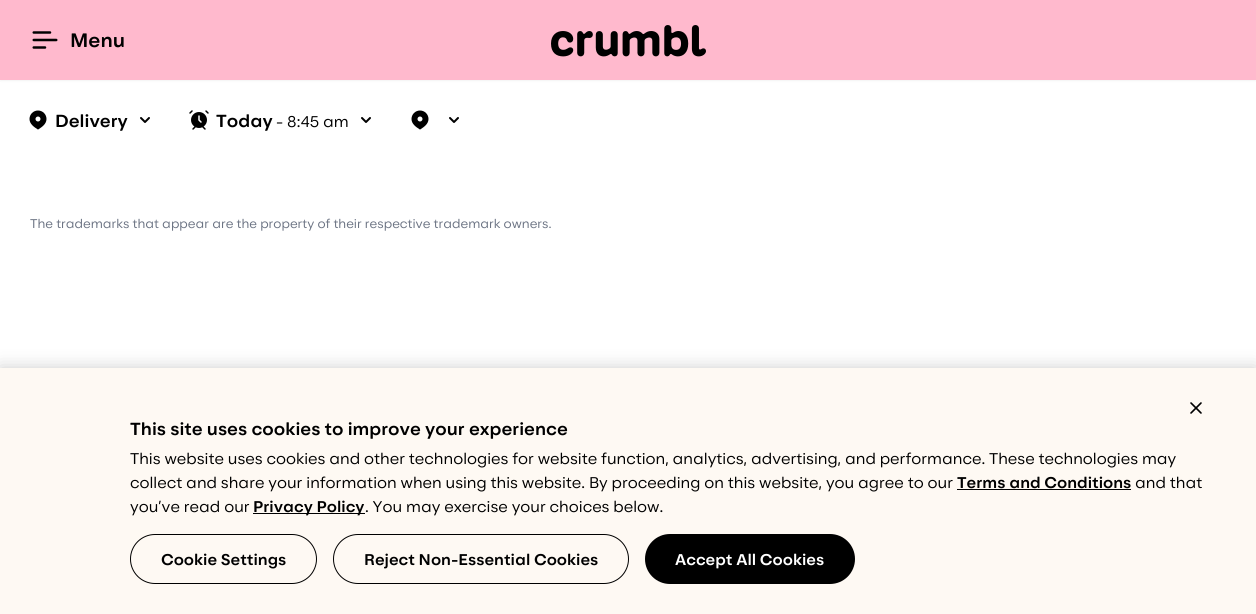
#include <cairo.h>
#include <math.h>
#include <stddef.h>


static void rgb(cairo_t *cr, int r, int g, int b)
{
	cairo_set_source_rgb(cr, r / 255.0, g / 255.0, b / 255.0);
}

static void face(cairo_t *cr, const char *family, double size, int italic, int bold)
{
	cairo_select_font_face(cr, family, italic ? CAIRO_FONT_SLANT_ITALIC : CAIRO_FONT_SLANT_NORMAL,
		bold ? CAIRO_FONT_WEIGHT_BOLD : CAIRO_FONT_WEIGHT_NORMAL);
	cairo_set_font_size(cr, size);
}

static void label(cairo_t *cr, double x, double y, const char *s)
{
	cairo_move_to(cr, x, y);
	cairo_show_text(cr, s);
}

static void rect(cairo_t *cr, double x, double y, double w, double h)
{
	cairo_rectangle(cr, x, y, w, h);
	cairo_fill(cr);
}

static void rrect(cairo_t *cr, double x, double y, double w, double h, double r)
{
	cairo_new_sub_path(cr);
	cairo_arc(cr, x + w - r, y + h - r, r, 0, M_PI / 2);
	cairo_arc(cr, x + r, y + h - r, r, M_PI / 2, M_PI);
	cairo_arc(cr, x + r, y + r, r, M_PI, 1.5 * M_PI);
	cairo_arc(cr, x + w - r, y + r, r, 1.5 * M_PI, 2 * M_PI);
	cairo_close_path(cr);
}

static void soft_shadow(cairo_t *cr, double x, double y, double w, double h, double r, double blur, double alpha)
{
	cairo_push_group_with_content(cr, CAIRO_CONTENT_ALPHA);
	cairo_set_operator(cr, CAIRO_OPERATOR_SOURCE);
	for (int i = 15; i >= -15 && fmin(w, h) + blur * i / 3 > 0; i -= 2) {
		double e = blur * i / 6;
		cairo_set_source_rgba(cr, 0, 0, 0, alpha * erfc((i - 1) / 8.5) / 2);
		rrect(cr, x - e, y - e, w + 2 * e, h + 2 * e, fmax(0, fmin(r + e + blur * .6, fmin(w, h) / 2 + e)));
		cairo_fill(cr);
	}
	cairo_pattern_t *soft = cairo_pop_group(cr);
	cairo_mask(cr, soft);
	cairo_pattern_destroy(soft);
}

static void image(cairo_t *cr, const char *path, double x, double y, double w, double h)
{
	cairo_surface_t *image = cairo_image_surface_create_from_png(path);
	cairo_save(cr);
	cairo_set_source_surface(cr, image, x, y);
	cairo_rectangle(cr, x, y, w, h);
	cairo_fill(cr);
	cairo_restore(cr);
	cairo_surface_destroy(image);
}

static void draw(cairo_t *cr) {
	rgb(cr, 255, 255, 255);
	cairo_paint(cr);
	rgb(cr, 0, 0, 0);
	soft_shadow(cr, 0, 1, 1256, 80, 0, 1, 0.05);
	rgb(cr, 255, 185, 205);
	rect(cr, 0, 0, 1256, 80);
	image(cr, "image0.png", 32, 31, 26, 18);
	face(cr, "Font", 20, 0, 1);
	rgb(cr, 0, 0, 0);
	label(cr, 70, 47, "Menu");
	image(cr, "image1.png", 551, 25, 155, 32);
	image(cr, "image2.png", 29, 110, 18, 20);
	face(cr, "Font", 18, 0, 1);
	label(cr, 55, 127, "Delivery");
	image(cr, "image3.png", 140, 117, 10, 6);
	image(cr, "image4.png", 189, 110, 20, 20);
	label(cr, 216, 127, "Today");
	face(cr, "Font", 16, 0, 0);
	label(cr, 276, 127, "- 8:45 am");
	image(cr, "image3.png", 361, 117, 10, 6);
	image(cr, "image2.png", 411, 110, 18, 20);
	image(cr, "image3.png", 449, 117, 10, 6);
	face(cr, "Font", 13, 0, 0);
	rgb(cr, 106, 114, 130);
	label(cr, 30, 228, "The trademarks that appear are the property of their respective trademark owners.");
	rgb(cr, 0, 0, 0);
	soft_shadow(cr, 0, 368, 1256, 246, 0, 9, 0.2);
	rgb(cr, 254, 249, 243);
	rect(cr, 0, 368, 1256, 246);
	image(cr, "image5.png", 1190, 402, 12, 12);
	face(cr, "Font", 18, 0, 1);
	rgb(cr, 0, 0, 0);
	label(cr, 130, 435, "This site uses cookies to improve your experience");
	face(cr, "Font", 16, 0, 0);
	label(cr, 130, 464, "This website uses cookies and other technologies for website function, analytics, advertising, and performance. These technologies may");
	label(cr, 130, 488, "collect and share your information when using this website. By proceeding on this website, you agree to our");
	face(cr, "Font", 16, 0, 1);
	label(cr, 957, 488, "Terms and Conditions");
	rect(cr, 957, 489, 174, 1);
	face(cr, "Font", 16, 0, 0);
	label(cr, 1135, 488, "and that");
	label(cr, 130, 512, "you’ve read our");
	rect(cr, 253, 513, 112, 1);
	face(cr, "Font", 16, 0, 1);
	label(cr, 253, 512, "Privacy Policy");
	face(cr, "Font", 16, 0, 0);
	label(cr, 365, 512, ". You may exercise your choices below.");
	rrect(cr, 130.5, 534.5, 186, 49, 24.5);
	cairo_set_line_width(cr, 1);
	cairo_stroke(cr);
	face(cr, "Font", 16, 0, 1);
	label(cr, 161, 565, "Cookie Settings");
	rrect(cr, 333.5, 534.5, 295, 49, 24.5);
	cairo_stroke(cr);
	label(cr, 364, 565, "Reject Non-Essential Cookies");
	rrect(cr, 645, 534, 210, 50, 25);
	cairo_fill(cr);
	rgb(cr, 255, 255, 255);
	label(cr, 675, 565, "Accept All Cookies");
}

int main(void) {
	cairo_surface_t *surface = cairo_image_surface_create(CAIRO_FORMAT_RGB24, 1256, 614);
	cairo_t *cr = cairo_create(surface);
	cairo_font_options_t *options = cairo_font_options_create();
	cairo_font_options_set_hint_metrics(options, CAIRO_HINT_METRICS_OFF);
	cairo_font_options_set_hint_style(options, CAIRO_HINT_STYLE_NONE);
	cairo_set_font_options(cr, options);
	cairo_set_miter_limit(cr, 4);
	draw(cr);
	cairo_surface_write_to_png(surface, "render.png");
	cairo_font_options_destroy(options);
	cairo_destroy(cr);
	cairo_surface_destroy(surface);
	return 0;
}
